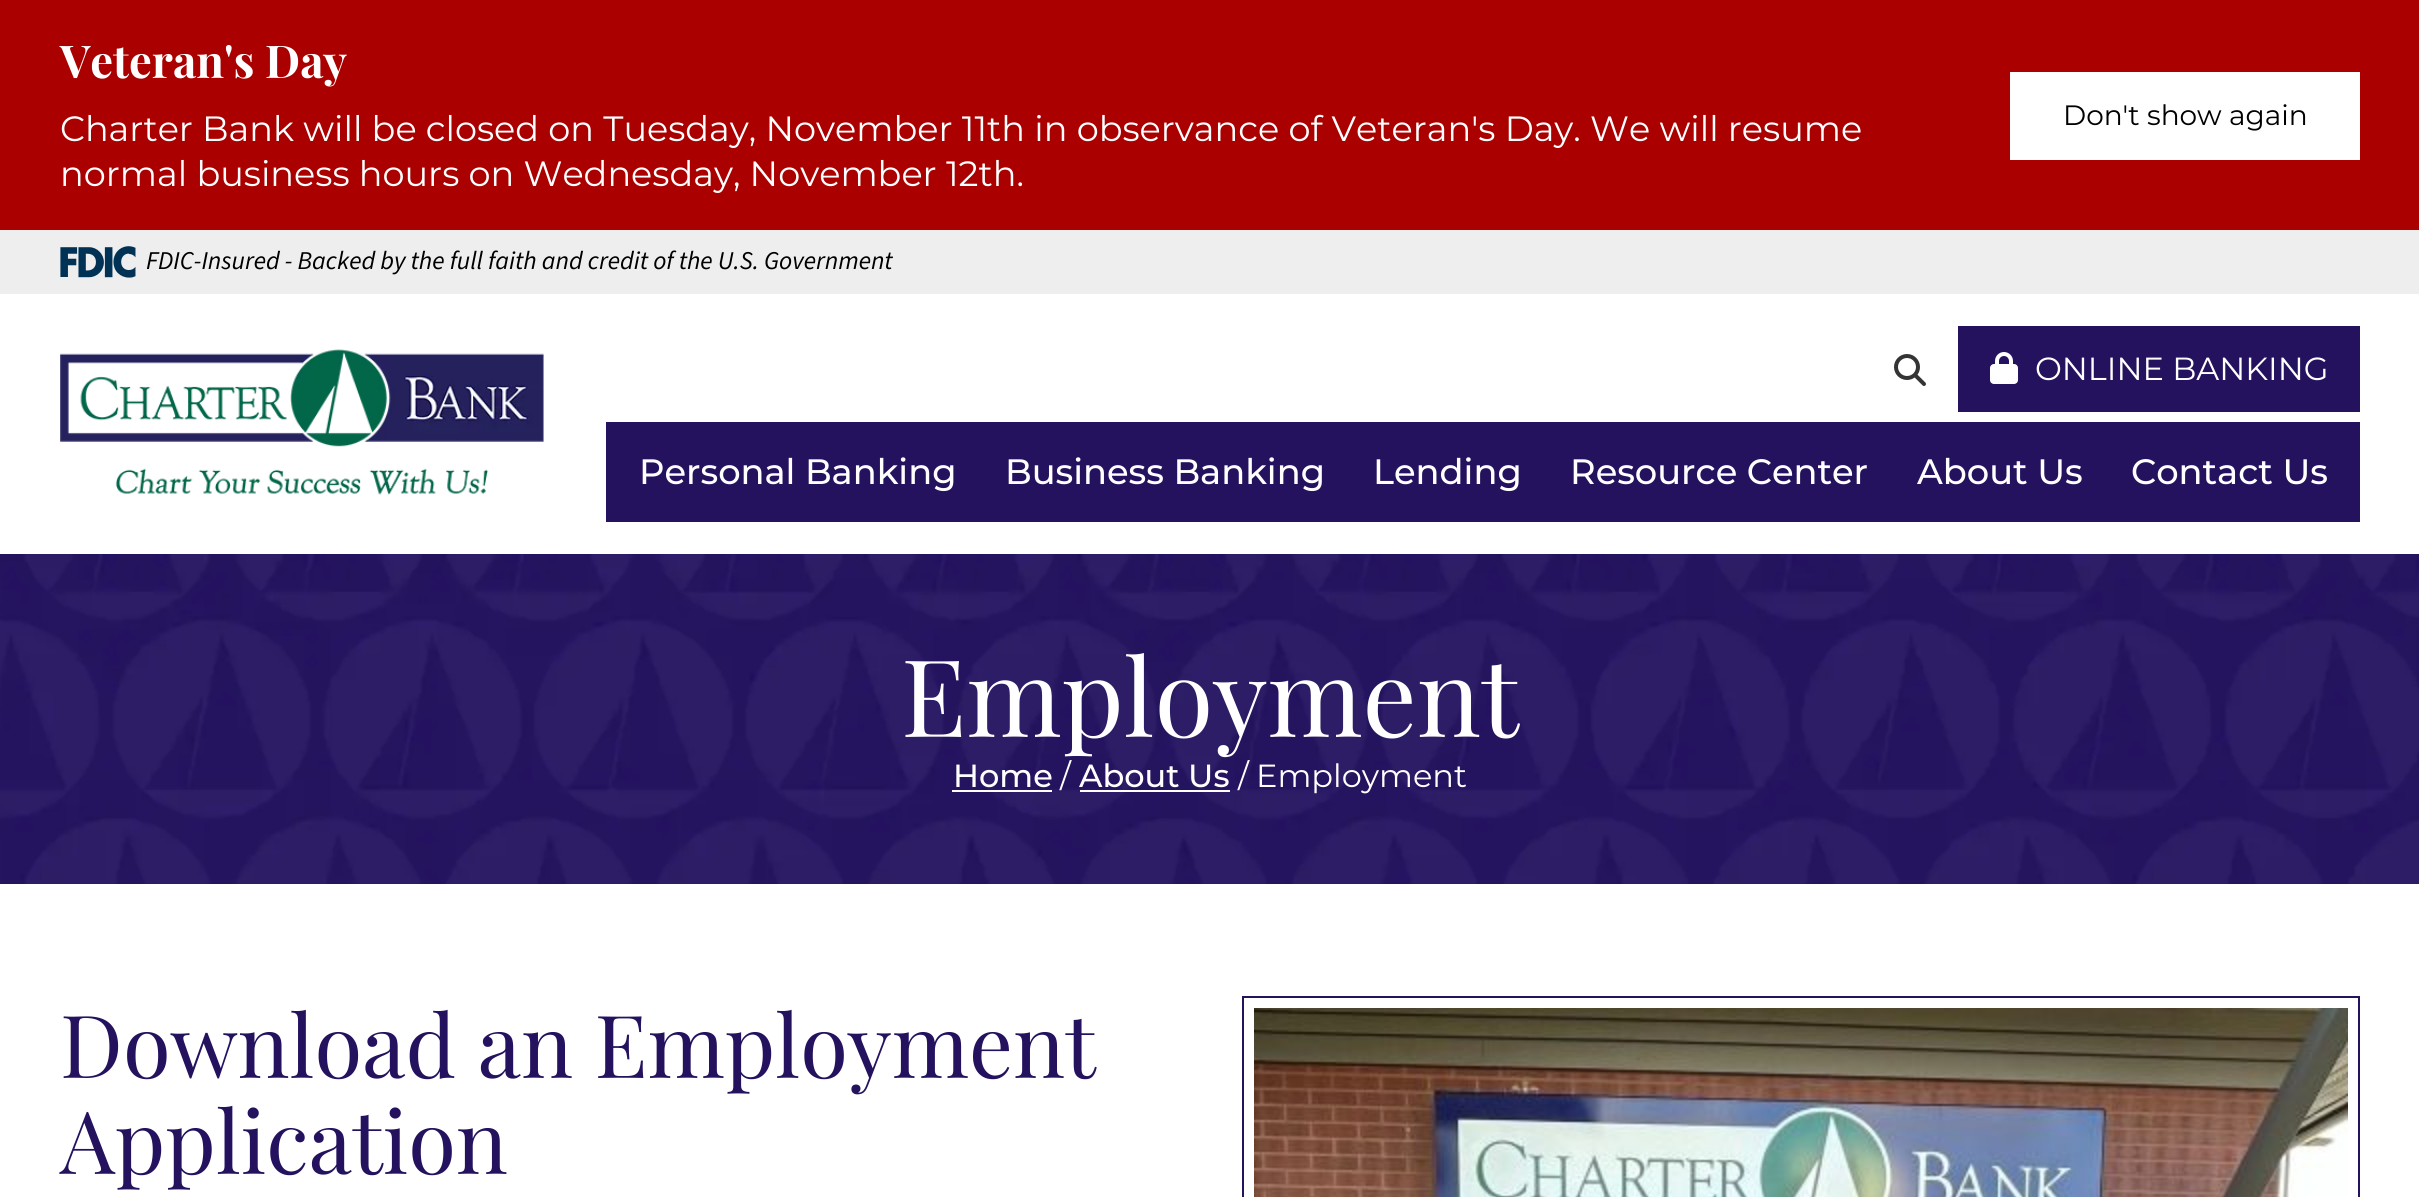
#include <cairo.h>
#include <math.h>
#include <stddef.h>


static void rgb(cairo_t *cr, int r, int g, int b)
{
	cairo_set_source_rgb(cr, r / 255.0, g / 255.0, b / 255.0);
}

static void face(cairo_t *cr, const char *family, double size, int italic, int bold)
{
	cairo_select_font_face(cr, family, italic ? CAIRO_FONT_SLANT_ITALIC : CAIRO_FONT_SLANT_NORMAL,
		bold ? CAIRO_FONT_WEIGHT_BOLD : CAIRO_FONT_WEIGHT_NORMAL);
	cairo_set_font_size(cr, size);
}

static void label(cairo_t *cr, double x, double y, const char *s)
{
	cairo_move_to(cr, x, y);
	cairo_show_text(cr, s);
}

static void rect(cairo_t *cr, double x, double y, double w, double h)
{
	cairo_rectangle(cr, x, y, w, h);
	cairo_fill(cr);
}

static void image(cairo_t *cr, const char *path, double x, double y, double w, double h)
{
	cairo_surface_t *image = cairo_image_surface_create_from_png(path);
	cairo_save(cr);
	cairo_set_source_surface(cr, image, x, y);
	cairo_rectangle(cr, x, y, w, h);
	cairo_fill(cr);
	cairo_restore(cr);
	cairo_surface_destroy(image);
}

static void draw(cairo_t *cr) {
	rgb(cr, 255, 255, 255);
	cairo_paint(cr);
	rgb(cr, 170, 0, 0);
	rect(cr, 0, 0, 2419, 230);
	face(cr, "Playfair Display", 45.25, 0, 1);
	rgb(cr, 255, 255, 255);
	label(cr, 60, 78, "Veteran's Day");
	face(cr, "Montserrat", 35.1, 0, 0);
	label(cr, 60, 141, "Charter Bank will be closed on Tuesday, November 11th in observance of Veteran's Day. We will resume");
	label(cr, 60, 186, "normal business hours on Wednesday, November 12th.");
	rect(cr, 2010, 72, 350, 88);
	face(cr, "Montserrat", 28, 0, 0);
	rgb(cr, 0, 0, 0);
	label(cr, 2063, 125, "Don't show again");
	rgb(cr, 238, 238, 238);
	rect(cr, 0, 230, 2419, 64);
	image(cr, "image0.png", 60, 246, 76, 32);
	face(cr, "Source Sans 3 ExtraLight", 25.6, 1, 0);
	rgb(cr, 0, 0, 0);
	label(cr, 146, 269, "FDIC-Insured - Backed by the full faith and credit of the U.S. Government");
	image(cr, "image1.png", 60, 349, 484, 146);
	image(cr, "image2.png", 1894, 354, 32, 32);
	rgb(cr, 36, 18, 95);
	rect(cr, 1958, 326, 402, 86);
	image(cr, "image3.png", 1990, 352, 28, 32);
	face(cr, "Montserrat", 32, 0, 0);
	rgb(cr, 255, 255, 255);
	label(cr, 2035, 380, "ONLINE BANKING");
	rgb(cr, 36, 18, 95);
	rect(cr, 606, 422, 1754, 100);
	face(cr, "Montserrat Medium", 35.25, 0, 0);
	rgb(cr, 255, 255, 255);
	label(cr, 639, 484, "Personal Banking");
	label(cr, 1005, 484, "Business Banking");
	label(cr, 1373, 484, "Lending");
	label(cr, 1570, 484, "Resource Center");
	label(cr, 1917, 484, "About Us");
	label(cr, 2131, 484, "Contact Us");
	image(cr, "image4.png", 0, 554, 2419, 330);
	face(cr, "Playfair Display", 107.25, 0, 0);
	label(cr, 901, 737, "Employment");
	face(cr, "Montserrat Medium", 32, 0, 0);
	label(cr, 953, 787, "Home");
	rect(cr, 952, 790, 100, 2);
	face(cr, "Montserrat", 32, 0, 0);
	label(cr, 1060, 787, "/");
	face(cr, "Montserrat Medium", 32, 0, 0);
	label(cr, 1079, 787, "About Us");
	rect(cr, 1080, 790, 150, 2);
	face(cr, "Montserrat", 32, 0, 0);
	label(cr, 1238, 787, "/");
	label(cr, 1256, 787, "Employment");
	face(cr, "Playfair Display", 87, 0, 0);
	rgb(cr, 36, 18, 95);
	label(cr, 60, 1078, "Download an Employment");
	label(cr, 60, 1174, "Application");
	cairo_rectangle(cr, 1243, 997, 1116, 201);
	cairo_stroke(cr);
	image(cr, "image5.png", 1254, 1008, 1094, 189);
}

int main(void) {
	cairo_surface_t *surface = cairo_image_surface_create(CAIRO_FORMAT_RGB24, 2419, 1197);
	cairo_t *cr = cairo_create(surface);
	cairo_font_options_t *options = cairo_font_options_create();
	cairo_font_options_set_hint_metrics(options, CAIRO_HINT_METRICS_OFF);
	cairo_font_options_set_hint_style(options, CAIRO_HINT_STYLE_NONE);
	cairo_set_font_options(cr, options);
	cairo_set_miter_limit(cr, 4);
	draw(cr);
	cairo_surface_write_to_png(surface, "render.png");
	cairo_font_options_destroy(options);
	cairo_destroy(cr);
	cairo_surface_destroy(surface);
	return 0;
}
